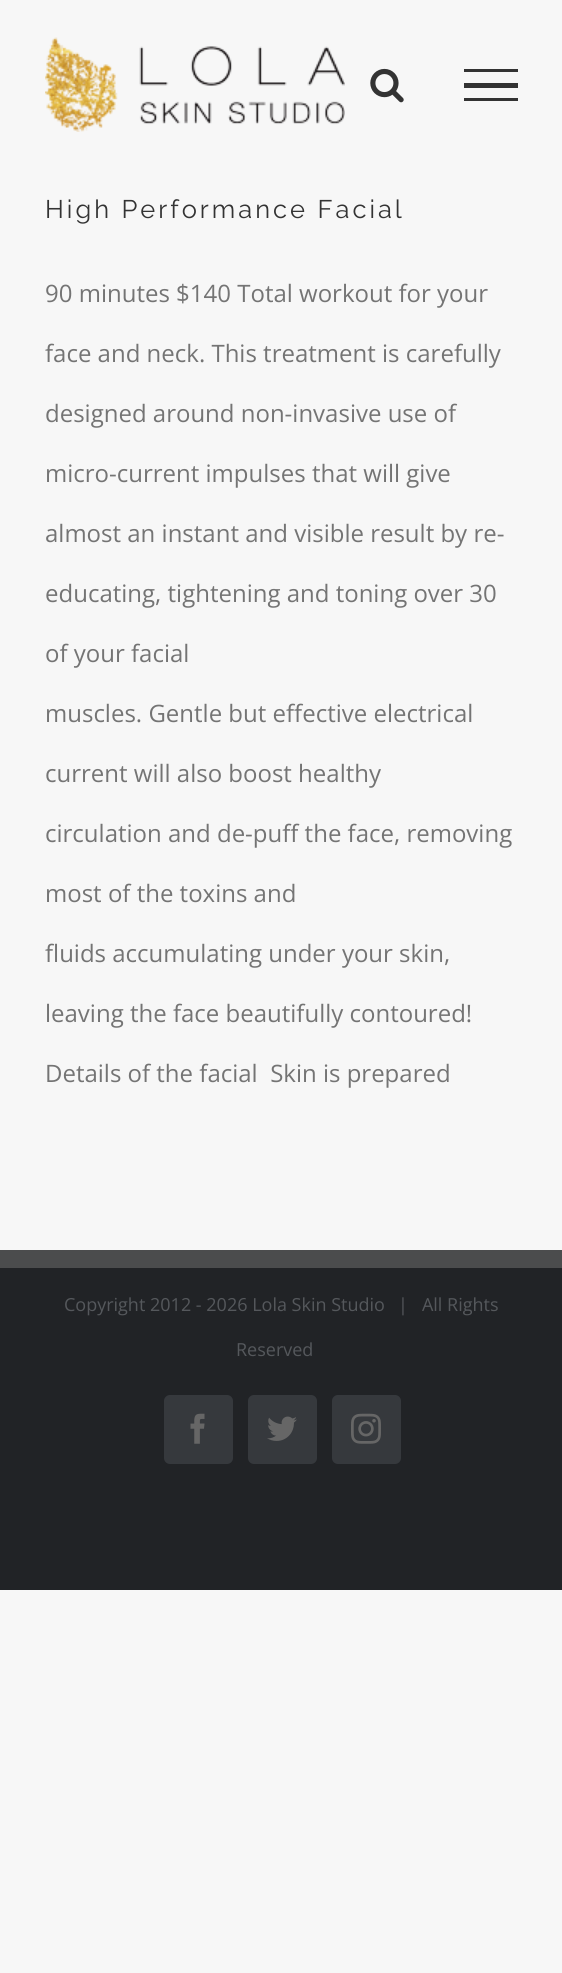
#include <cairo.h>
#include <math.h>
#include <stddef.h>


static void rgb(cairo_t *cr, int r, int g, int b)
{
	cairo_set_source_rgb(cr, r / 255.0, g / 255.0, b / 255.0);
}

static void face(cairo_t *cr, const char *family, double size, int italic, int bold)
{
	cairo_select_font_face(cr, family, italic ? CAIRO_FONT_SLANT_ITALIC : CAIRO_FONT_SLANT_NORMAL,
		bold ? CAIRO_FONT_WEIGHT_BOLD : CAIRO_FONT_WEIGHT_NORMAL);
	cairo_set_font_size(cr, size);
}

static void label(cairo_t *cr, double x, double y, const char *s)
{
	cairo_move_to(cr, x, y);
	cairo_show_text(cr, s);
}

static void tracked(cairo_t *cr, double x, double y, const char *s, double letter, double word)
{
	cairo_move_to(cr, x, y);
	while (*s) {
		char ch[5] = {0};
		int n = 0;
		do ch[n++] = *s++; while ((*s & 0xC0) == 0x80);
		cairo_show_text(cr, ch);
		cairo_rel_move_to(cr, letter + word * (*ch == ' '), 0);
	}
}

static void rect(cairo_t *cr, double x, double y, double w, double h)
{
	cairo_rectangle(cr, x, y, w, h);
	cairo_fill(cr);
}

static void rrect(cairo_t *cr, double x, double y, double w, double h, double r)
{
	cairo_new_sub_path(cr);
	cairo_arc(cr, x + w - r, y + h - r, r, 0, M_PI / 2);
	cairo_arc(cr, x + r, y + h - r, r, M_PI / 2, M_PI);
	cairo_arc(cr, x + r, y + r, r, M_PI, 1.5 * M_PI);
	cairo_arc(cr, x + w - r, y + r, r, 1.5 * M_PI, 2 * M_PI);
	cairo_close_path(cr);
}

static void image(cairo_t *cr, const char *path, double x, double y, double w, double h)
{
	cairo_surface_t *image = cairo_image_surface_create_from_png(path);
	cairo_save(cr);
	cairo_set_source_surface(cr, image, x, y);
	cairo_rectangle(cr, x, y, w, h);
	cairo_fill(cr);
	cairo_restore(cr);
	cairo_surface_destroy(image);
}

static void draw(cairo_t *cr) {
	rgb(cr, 247, 247, 247);
	cairo_paint(cr);
	image(cr, "image0.png", 45, 37, 300, 95);
	image(cr, "image1.png", 370, 68, 34, 35);
	rgb(cr, 51, 51, 51);
	rect(cr, 464, 69, 54, 3);
	rect(cr, 464, 83, 54, 5);
	rect(cr, 464, 98, 54, 3);
	face(cr, "Raleway Thin", 25.5, 0, 0);
	tracked(cr, 45, 218, "High Performance Facial", 3, 0);
	face(cr, "Open Sans", 24, 0, 0);
	rgb(cr, 116, 116, 116);
	label(cr, 45, 302, "90 minutes $140 Total workout for your");
	label(cr, 45, 362, "face and neck. This treatment is carefully");
	label(cr, 45, 422, "designed around non-invasive use of");
	label(cr, 45, 482, "micro-current impulses that will give");
	label(cr, 45, 542, "almost an instant and visible result by re-");
	label(cr, 45, 602, "educating, tightening and toning over 30");
	label(cr, 45, 662, "of your facial");
	label(cr, 45, 722, "muscles. Gentle but effective electrical");
	label(cr, 45, 782, "current will also boost healthy");
	label(cr, 45, 842, "circulation and de-puff the face, removing");
	label(cr, 45, 902, "most of the toxins and");
	label(cr, 45, 962, "fluids accumulating under your skin,");
	label(cr, 45, 1022, "leaving the face beautifully contoured!");
	label(cr, 45, 1082, "Details of the facial  Skin is prepared");
	rgb(cr, 33, 35, 38);
	rect(cr, 0, 1268, 562, 322);
	rgb(cr, 75, 76, 77);
	rect(cr, 0, 1250, 562, 18);
	face(cr, "Open Sans", 18, 0, 0);
	rgb(cr, 85, 88, 92);
	label(cr, 64, 1311, "Copyright 2012 - 2026 Lola Skin Studio");
	label(cr, 398, 1311, "|   All Rights");
	label(cr, 236, 1356, "Reserved");
	rgb(cr, 54, 57, 61);
	rrect(cr, 165, 1396, 67, 67, 5);
	cairo_fill_preserve(cr);
	cairo_stroke(cr);
	image(cr, "image2.png", 190, 1413, 15, 31);
	rrect(cr, 249, 1396, 67, 67, 5);
	cairo_fill_preserve(cr);
	cairo_stroke(cr);
	image(cr, "image3.png", 267, 1416, 30, 25);
	rrect(cr, 333, 1396, 67, 67, 5);
	cairo_fill_preserve(cr);
	cairo_stroke(cr);
	image(cr, "image4.png", 351, 1413, 30, 31);
}

int main(void) {
	cairo_surface_t *surface = cairo_image_surface_create(CAIRO_FORMAT_RGB24, 562, 1973);
	cairo_t *cr = cairo_create(surface);
	cairo_font_options_t *options = cairo_font_options_create();
	cairo_font_options_set_hint_metrics(options, CAIRO_HINT_METRICS_OFF);
	cairo_font_options_set_hint_style(options, CAIRO_HINT_STYLE_NONE);
	cairo_set_font_options(cr, options);
	cairo_set_miter_limit(cr, 4);
	draw(cr);
	cairo_surface_write_to_png(surface, "render.png");
	cairo_font_options_destroy(options);
	cairo_destroy(cr);
	cairo_surface_destroy(surface);
	return 0;
}
